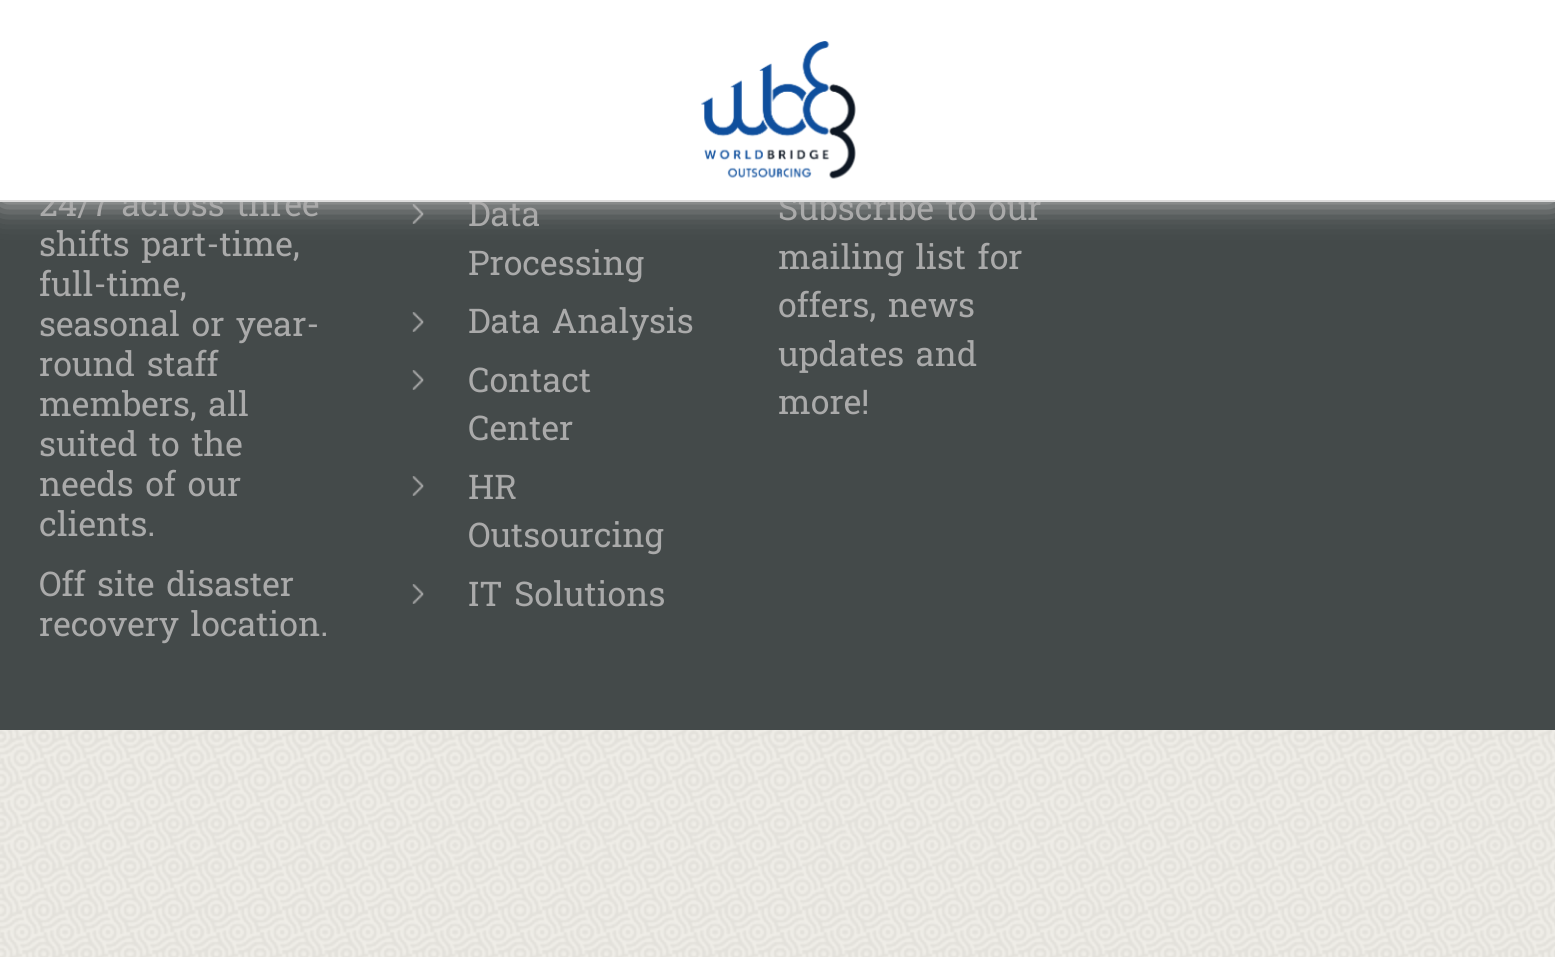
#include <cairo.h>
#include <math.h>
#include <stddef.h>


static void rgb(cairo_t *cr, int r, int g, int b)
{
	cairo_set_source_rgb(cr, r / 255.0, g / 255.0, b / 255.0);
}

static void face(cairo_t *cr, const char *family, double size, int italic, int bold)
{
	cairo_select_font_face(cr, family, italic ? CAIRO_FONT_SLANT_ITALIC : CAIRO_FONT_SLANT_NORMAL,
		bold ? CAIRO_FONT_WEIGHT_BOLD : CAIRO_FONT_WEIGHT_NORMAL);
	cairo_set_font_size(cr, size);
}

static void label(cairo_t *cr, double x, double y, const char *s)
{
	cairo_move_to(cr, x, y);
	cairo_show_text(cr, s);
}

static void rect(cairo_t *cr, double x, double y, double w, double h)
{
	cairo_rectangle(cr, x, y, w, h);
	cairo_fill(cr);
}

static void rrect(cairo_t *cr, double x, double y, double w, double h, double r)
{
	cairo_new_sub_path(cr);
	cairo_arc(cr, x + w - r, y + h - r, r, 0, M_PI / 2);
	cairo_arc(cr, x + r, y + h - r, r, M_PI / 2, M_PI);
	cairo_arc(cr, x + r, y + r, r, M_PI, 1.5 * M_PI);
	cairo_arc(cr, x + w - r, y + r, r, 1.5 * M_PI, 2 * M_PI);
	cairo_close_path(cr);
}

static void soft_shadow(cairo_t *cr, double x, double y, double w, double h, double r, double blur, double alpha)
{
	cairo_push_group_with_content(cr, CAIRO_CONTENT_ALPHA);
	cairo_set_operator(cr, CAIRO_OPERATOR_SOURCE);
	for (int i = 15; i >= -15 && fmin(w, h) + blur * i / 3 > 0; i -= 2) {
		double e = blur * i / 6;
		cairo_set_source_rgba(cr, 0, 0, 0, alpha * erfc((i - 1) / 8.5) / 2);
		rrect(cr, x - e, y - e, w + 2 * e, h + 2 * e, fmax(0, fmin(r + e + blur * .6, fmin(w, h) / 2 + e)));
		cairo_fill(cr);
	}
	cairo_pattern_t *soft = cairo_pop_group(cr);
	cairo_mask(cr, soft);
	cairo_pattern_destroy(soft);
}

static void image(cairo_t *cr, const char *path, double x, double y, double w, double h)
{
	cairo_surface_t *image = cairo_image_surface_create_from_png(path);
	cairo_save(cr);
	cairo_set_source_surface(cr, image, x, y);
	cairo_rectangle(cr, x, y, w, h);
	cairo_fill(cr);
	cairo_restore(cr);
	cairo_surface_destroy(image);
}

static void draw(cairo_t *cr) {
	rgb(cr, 255, 255, 255);
	cairo_paint(cr);
	image(cr, "image0.png", 0, 730, 1555, 227);
	rgb(cr, 68, 74, 74);
	rect(cr, 0, 202, 1555, 528);
	image(cr, "image2.png", 412, 204, 12, 20);
	rgb(cr, 204, 204, 204);
	soft_shadow(cr, 0, 0, 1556, 202, 0, 15, 1);
	face(cr, "Battambang", 34, 0, 0);
	rgb(cr, 170, 170, 170);
	label(cr, 39, 216, "24/7 across three");
	label(cr, 778, 220, "Subscribe to our");
	rgb(cr, 255, 255, 255);
	rect(cr, 0, 0, 1555, 200);
	rgb(cr, 170, 170, 170);
	label(cr, 468, 226, "Data");
	rgb(cr, 221, 221, 221);
	rect(cr, 0, 200, 1555, 2);
	image(cr, "image1.png", 701, 41, 155, 138);
	rgb(cr, 170, 170, 170);
	label(cr, 39, 256, "shifts part-time,");
	label(cr, 39, 296, "full-time,");
	label(cr, 39, 336, "seasonal or year-");
	label(cr, 39, 376, "round staff");
	label(cr, 39, 416, "members, all");
	label(cr, 39, 456, "suited to the");
	label(cr, 39, 496, "needs of our");
	label(cr, 39, 536, "clients.");
	label(cr, 39, 596, "Off site disaster");
	label(cr, 39, 636, "recovery location.");
	label(cr, 468, 275, "Processing");
	image(cr, "image2.png", 412, 312, 12, 20);
	label(cr, 468, 333, "Data Analysis");
	image(cr, "image2.png", 412, 370, 12, 20);
	label(cr, 468, 392, "Contact");
	label(cr, 468, 440, "Center");
	image(cr, "image2.png", 412, 476, 12, 20);
	label(cr, 468, 499, "HR");
	label(cr, 468, 547, "Outsourcing");
	image(cr, "image2.png", 412, 584, 12, 20);
	label(cr, 468, 606, "IT Solutions");
	label(cr, 778, 269, "mailing list for");
	label(cr, 778, 317, "offers, news");
	label(cr, 778, 366, "updates and");
	label(cr, 778, 414, "more!");
}

int main(void) {
	cairo_surface_t *surface = cairo_image_surface_create(CAIRO_FORMAT_RGB24, 1555, 957);
	cairo_t *cr = cairo_create(surface);
	cairo_font_options_t *options = cairo_font_options_create();
	cairo_font_options_set_hint_metrics(options, CAIRO_HINT_METRICS_OFF);
	cairo_font_options_set_hint_style(options, CAIRO_HINT_STYLE_NONE);
	cairo_set_font_options(cr, options);
	cairo_set_miter_limit(cr, 4);
	draw(cr);
	cairo_surface_write_to_png(surface, "render.png");
	cairo_font_options_destroy(options);
	cairo_destroy(cr);
	cairo_surface_destroy(surface);
	return 0;
}
